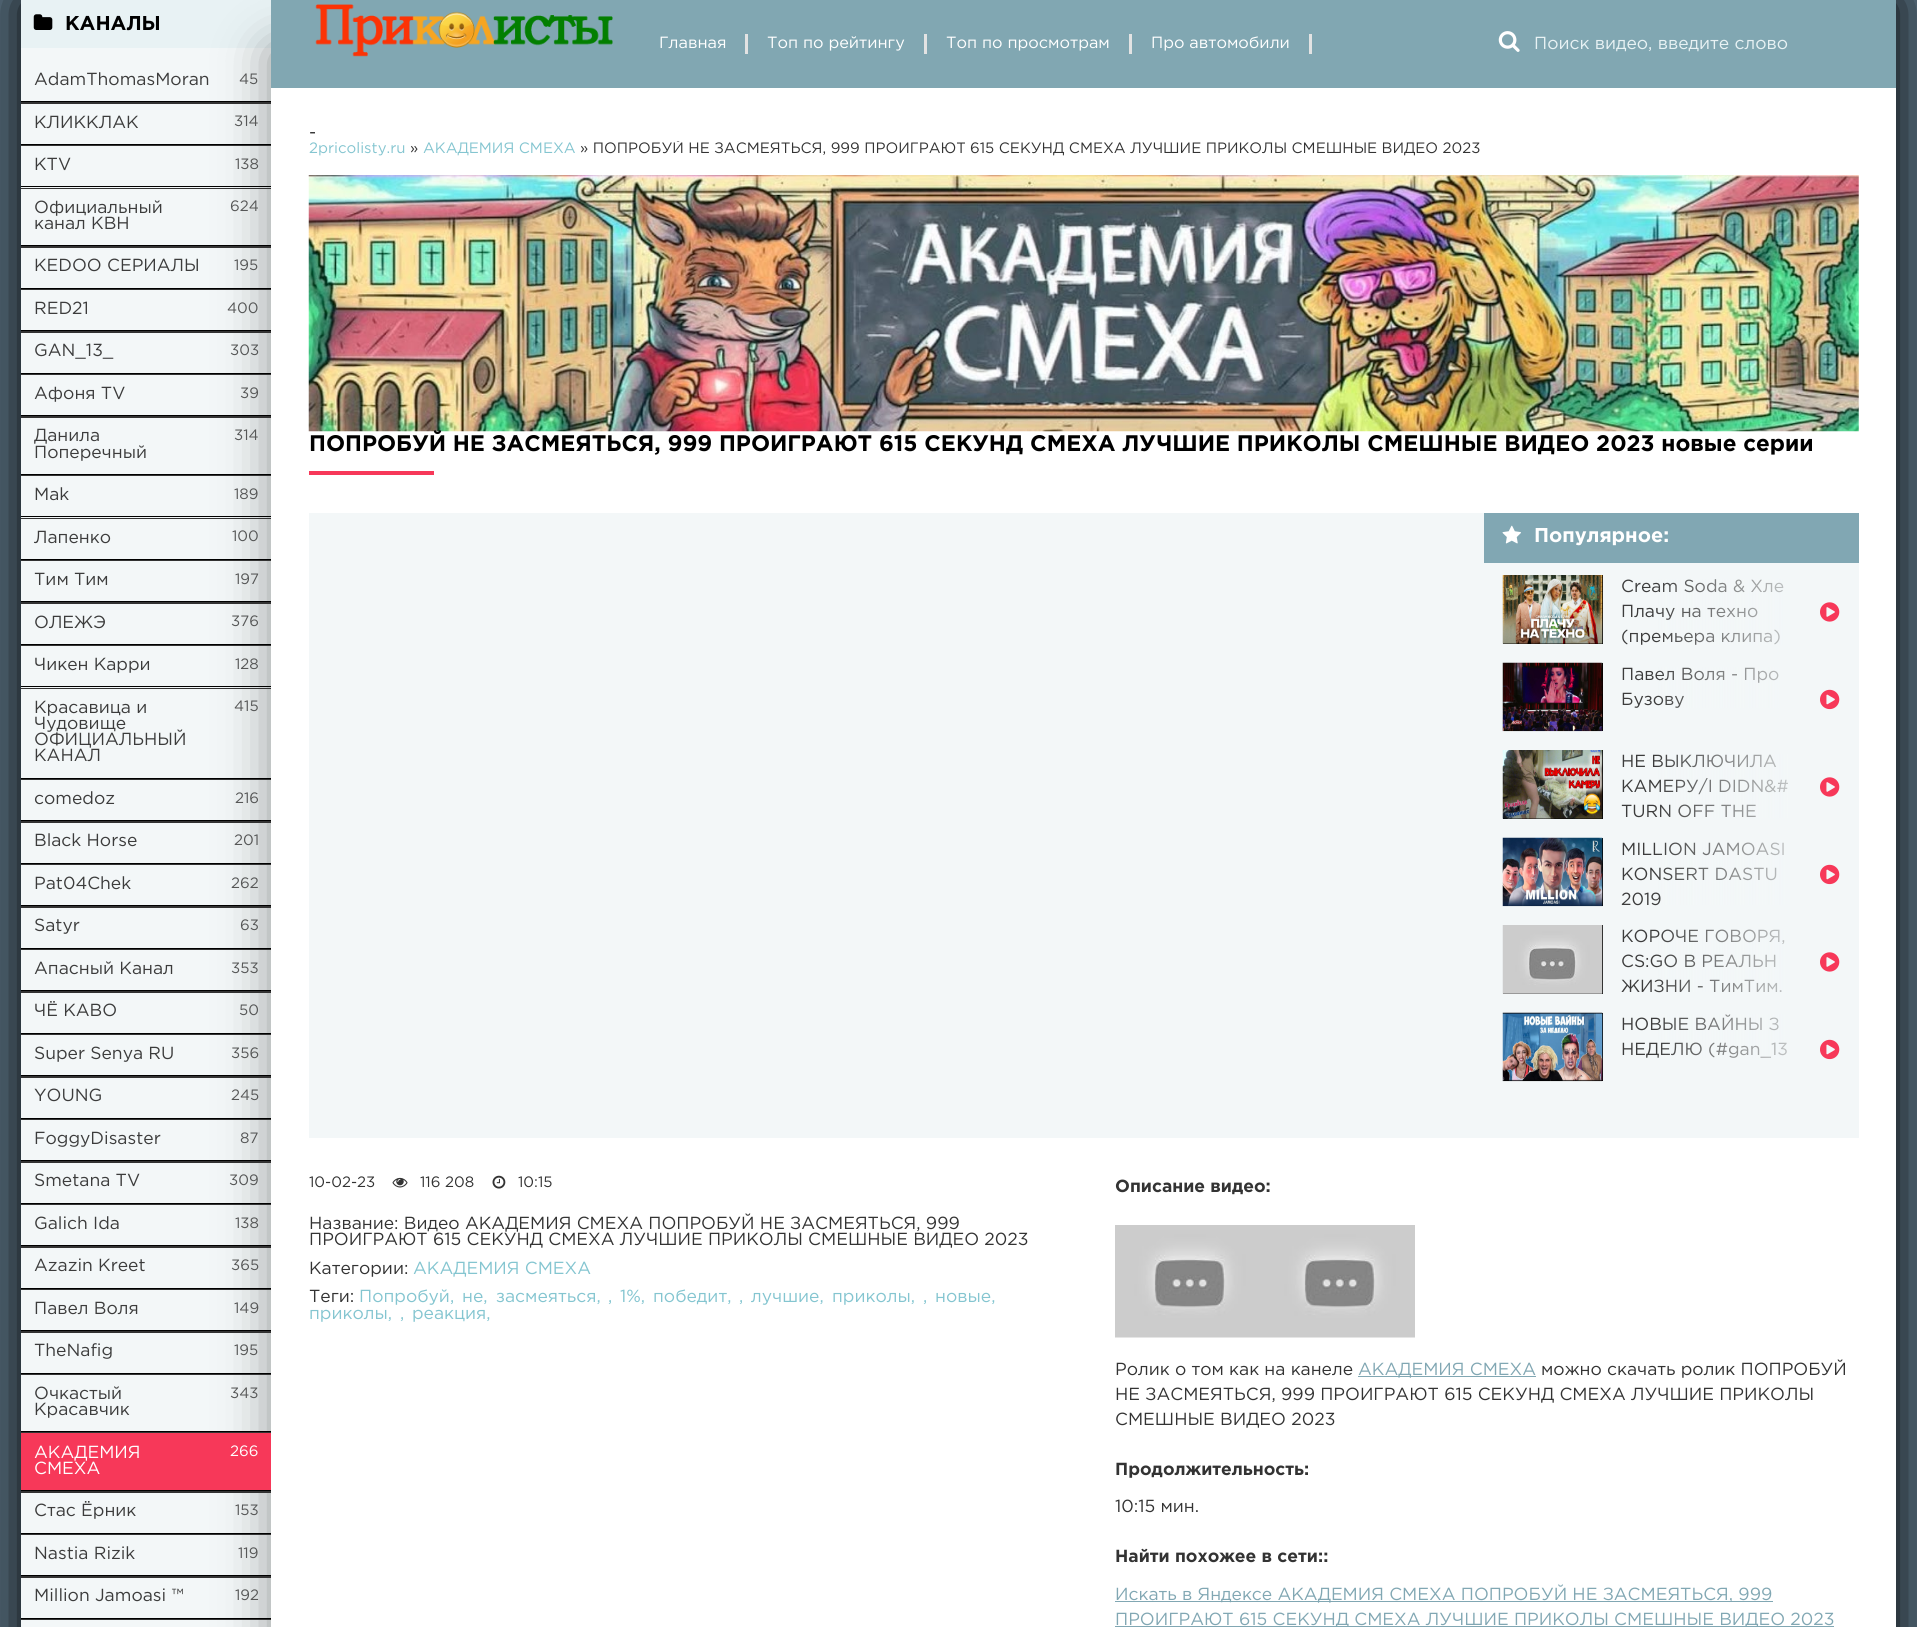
#include <cairo.h>
#include <math.h>
#include <stddef.h>


static void rgb(cairo_t *cr, int r, int g, int b)
{
	cairo_set_source_rgb(cr, r / 255.0, g / 255.0, b / 255.0);
}

static void face(cairo_t *cr, const char *family, double size, int italic, int bold)
{
	cairo_select_font_face(cr, family, italic ? CAIRO_FONT_SLANT_ITALIC : CAIRO_FONT_SLANT_NORMAL,
		bold ? CAIRO_FONT_WEIGHT_BOLD : CAIRO_FONT_WEIGHT_NORMAL);
	cairo_set_font_size(cr, size);
}

static void label(cairo_t *cr, double x, double y, const char *s)
{
	cairo_move_to(cr, x, y);
	cairo_show_text(cr, s);
}

static void rect(cairo_t *cr, double x, double y, double w, double h)
{
	cairo_rectangle(cr, x, y, w, h);
	cairo_fill(cr);
}

static void rrect(cairo_t *cr, double x, double y, double w, double h, double r)
{
	cairo_new_sub_path(cr);
	cairo_arc(cr, x + w - r, y + h - r, r, 0, M_PI / 2);
	cairo_arc(cr, x + r, y + h - r, r, M_PI / 2, M_PI);
	cairo_arc(cr, x + r, y + r, r, M_PI, 1.5 * M_PI);
	cairo_arc(cr, x + w - r, y + r, r, 1.5 * M_PI, 2 * M_PI);
	cairo_close_path(cr);
}

static void soft_shadow(cairo_t *cr, double x, double y, double w, double h, double r, double blur, double alpha)
{
	cairo_push_group_with_content(cr, CAIRO_CONTENT_ALPHA);
	cairo_set_operator(cr, CAIRO_OPERATOR_SOURCE);
	for (int i = 15; i >= -15 && fmin(w, h) + blur * i / 3 > 0; i -= 2) {
		double e = blur * i / 6;
		cairo_set_source_rgba(cr, 0, 0, 0, alpha * erfc((i - 1) / 8.5) / 2);
		rrect(cr, x - e, y - e, w + 2 * e, h + 2 * e, fmax(0, fmin(r + e + blur * .6, fmin(w, h) / 2 + e)));
		cairo_fill(cr);
	}
	cairo_pattern_t *soft = cairo_pop_group(cr);
	cairo_mask(cr, soft);
	cairo_pattern_destroy(soft);
}

static void image(cairo_t *cr, const char *path, double x, double y, double w, double h)
{
	cairo_surface_t *image = cairo_image_surface_create_from_png(path);
	cairo_save(cr);
	cairo_set_source_surface(cr, image, x, y);
	cairo_rectangle(cr, x, y, w, h);
	cairo_fill(cr);
	cairo_restore(cr);
	cairo_surface_destroy(image);
}

static void draw(cairo_t *cr) {
	cairo_pattern_t *gradient;
	rgb(cr, 90, 113, 129);
	cairo_paint(cr);
	rgb(cr, 0, 0, 0);
	soft_shadow(cr, 21, 0, 1875, 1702, 0, 25, 1);
	rgb(cr, 255, 255, 255);
	rect(cr, 271, 88, 1625, 1539);
	rgb(cr, 243, 247, 248);
	rect(cr, 21, 48, 250, 1579);
	rgb(cr, 232, 242, 244);
	rect(cr, 21, 0, 250, 48);
	image(cr, "image0.png", 33, 14, 20, 16);
	face(cr, "Gotham", 20, 0, 1);
	rgb(cr, 0, 0, 0);
	label(cr, 65, 30, "КАНАЛЫ");
	cairo_save(cr);
	cairo_set_fill_rule(cr, CAIRO_FILL_RULE_EVEN_ODD);
	cairo_new_path(cr);
	cairo_move_to(cr, 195, 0);
	cairo_line_to(cr, 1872, 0);
	cairo_line_to(cr, 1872, 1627);
	cairo_line_to(cr, 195, 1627);
	cairo_close_path(cr);
	cairo_move_to(cr, 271, 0);
	cairo_line_to(cr, 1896, 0);
	cairo_line_to(cr, 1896, 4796);
	cairo_line_to(cr, 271, 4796);
	cairo_close_path(cr);
	cairo_clip(cr);
	rgb(cr, 0, 0, 0);
	soft_shadow(cr, 271, 50, 1525, 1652, 0, 25, 0.4);
	cairo_restore(cr);
	rgb(cr, 51, 51, 51);
	cairo_new_path(cr);
	cairo_move_to(cr, 21, 61);
	cairo_line_to(cr, 21, 104);
	cairo_line_to(cr, 271, 104);
	cairo_line_to(cr, 271, 102);
	cairo_line_to(cr, 21, 102);
	cairo_close_path(cr);
	cairo_fill(cr);
	rgb(cr, 0, 0, 0);
	rect(cr, 21, 101, 250, 1);
	face(cr, "Gotham", 17.5, 0, 0);
	rgb(cr, 60, 60, 60);
	label(cr, 34, 85, "AdamThomasMoran");
	face(cr, "Gotham", 15, 0, 0);
	rgb(cr, 86, 87, 87);
	label(cr, 239, 84, "45");
	rgb(cr, 51, 51, 51);
	cairo_new_path(cr);
	cairo_move_to(cr, 21, 104);
	cairo_line_to(cr, 21, 146);
	cairo_line_to(cr, 271, 146);
	cairo_line_to(cr, 271, 145);
	cairo_line_to(cr, 21, 145);
	cairo_close_path(cr);
	cairo_fill(cr);
	rgb(cr, 0, 0, 0);
	rect(cr, 21, 144, 250, 1);
	face(cr, "Gotham", 17.5, 0, 0);
	rgb(cr, 60, 60, 60);
	label(cr, 34, 128, "КЛИККЛАК");
	face(cr, "Gotham", 15, 0, 0);
	rgb(cr, 86, 87, 87);
	label(cr, 234, 126, "314");
	rgb(cr, 51, 51, 51);
	cairo_new_path(cr);
	cairo_move_to(cr, 21, 146);
	cairo_line_to(cr, 21, 189);
	cairo_line_to(cr, 271, 189);
	cairo_line_to(cr, 271, 188);
	cairo_line_to(cr, 21, 188);
	cairo_close_path(cr);
	cairo_fill(cr);
	rgb(cr, 0, 0, 0);
	rect(cr, 21, 186, 250, 1);
	face(cr, "Gotham", 17.5, 0, 0);
	rgb(cr, 60, 60, 60);
	label(cr, 34, 170, "KTV");
	face(cr, "Gotham", 15, 0, 0);
	rgb(cr, 86, 87, 87);
	label(cr, 235, 169, "138");
	rgb(cr, 51, 51, 51);
	cairo_new_path(cr);
	cairo_move_to(cr, 21, 189);
	cairo_line_to(cr, 21, 248);
	cairo_line_to(cr, 271, 248);
	cairo_line_to(cr, 271, 246);
	cairo_line_to(cr, 21, 246);
	cairo_close_path(cr);
	cairo_fill(cr);
	rgb(cr, 0, 0, 0);
	rect(cr, 21, 245, 250, 1);
	face(cr, "Gotham", 17.5, 0, 0);
	rgb(cr, 60, 60, 60);
	label(cr, 34, 213, "Официальный");
	label(cr, 34, 229, "канал КВН");
	face(cr, "Gotham", 15, 0, 0);
	rgb(cr, 86, 87, 87);
	label(cr, 230, 211, "624");
	rgb(cr, 51, 51, 51);
	cairo_new_path(cr);
	cairo_move_to(cr, 21, 248);
	cairo_line_to(cr, 21, 290);
	cairo_line_to(cr, 271, 290);
	cairo_line_to(cr, 271, 289);
	cairo_line_to(cr, 21, 289);
	cairo_close_path(cr);
	cairo_fill(cr);
	rgb(cr, 0, 0, 0);
	rect(cr, 21, 288, 250, 1);
	face(cr, "Gotham", 17.5, 0, 0);
	rgb(cr, 60, 60, 60);
	label(cr, 34, 271, "KEDOO СЕРИАЛЫ");
	face(cr, "Gotham", 15, 0, 0);
	rgb(cr, 86, 87, 87);
	label(cr, 234, 270, "195");
	rgb(cr, 51, 51, 51);
	cairo_new_path(cr);
	cairo_move_to(cr, 21, 290);
	cairo_line_to(cr, 21, 333);
	cairo_line_to(cr, 271, 333);
	cairo_line_to(cr, 271, 331);
	cairo_line_to(cr, 21, 331);
	cairo_close_path(cr);
	cairo_fill(cr);
	rgb(cr, 0, 0, 0);
	rect(cr, 21, 330, 250, 1);
	face(cr, "Gotham", 17.5, 0, 0);
	rgb(cr, 60, 60, 60);
	label(cr, 34, 314, "RED21");
	face(cr, "Gotham", 15, 0, 0);
	rgb(cr, 86, 87, 87);
	label(cr, 227, 313, "400");
	rgb(cr, 51, 51, 51);
	cairo_new_path(cr);
	cairo_move_to(cr, 21, 333);
	cairo_line_to(cr, 21, 375);
	cairo_line_to(cr, 271, 375);
	cairo_line_to(cr, 271, 374);
	cairo_line_to(cr, 21, 374);
	cairo_close_path(cr);
	cairo_fill(cr);
	rgb(cr, 0, 0, 0);
	rect(cr, 21, 373, 250, 1);
	face(cr, "Gotham", 17.5, 0, 0);
	rgb(cr, 60, 60, 60);
	label(cr, 34, 356, "GAN_13_");
	face(cr, "Gotham", 15, 0, 0);
	rgb(cr, 86, 87, 87);
	label(cr, 230, 355, "303");
	rgb(cr, 51, 51, 51);
	cairo_new_path(cr);
	cairo_move_to(cr, 21, 375);
	cairo_line_to(cr, 21, 418);
	cairo_line_to(cr, 271, 418);
	cairo_line_to(cr, 271, 416);
	cairo_line_to(cr, 21, 416);
	cairo_close_path(cr);
	cairo_fill(cr);
	rgb(cr, 0, 0, 0);
	rect(cr, 21, 415, 250, 1);
	face(cr, "Gotham", 17.5, 0, 0);
	rgb(cr, 60, 60, 60);
	label(cr, 34, 399, "Афоня TV");
	face(cr, "Gotham", 15, 0, 0);
	rgb(cr, 86, 87, 87);
	label(cr, 240, 398, "39");
	rgb(cr, 51, 51, 51);
	cairo_new_path(cr);
	cairo_move_to(cr, 21, 418);
	cairo_line_to(cr, 21, 476);
	cairo_line_to(cr, 271, 476);
	cairo_line_to(cr, 271, 475);
	cairo_line_to(cr, 21, 475);
	cairo_close_path(cr);
	cairo_fill(cr);
	rgb(cr, 0, 0, 0);
	rect(cr, 21, 474, 250, 1);
	face(cr, "Gotham", 17.5, 0, 0);
	rgb(cr, 60, 60, 60);
	label(cr, 34, 441, "Данила");
	label(cr, 34, 458, "Поперечный");
	face(cr, "Gotham", 15, 0, 0);
	rgb(cr, 86, 87, 87);
	label(cr, 234, 440, "314");
	rgb(cr, 51, 51, 51);
	cairo_new_path(cr);
	cairo_move_to(cr, 21, 476);
	cairo_line_to(cr, 21, 519);
	cairo_line_to(cr, 271, 519);
	cairo_line_to(cr, 271, 518);
	cairo_line_to(cr, 21, 518);
	cairo_close_path(cr);
	cairo_fill(cr);
	rgb(cr, 0, 0, 0);
	rect(cr, 21, 516, 250, 1);
	face(cr, "Gotham", 17.5, 0, 0);
	rgb(cr, 60, 60, 60);
	label(cr, 34, 500, "Mak");
	face(cr, "Gotham", 15, 0, 0);
	rgb(cr, 86, 87, 87);
	label(cr, 234, 499, "189");
	rgb(cr, 51, 51, 51);
	cairo_new_path(cr);
	cairo_move_to(cr, 21, 519);
	cairo_line_to(cr, 21, 561);
	cairo_line_to(cr, 271, 561);
	cairo_line_to(cr, 271, 560);
	cairo_line_to(cr, 21, 560);
	cairo_close_path(cr);
	cairo_fill(cr);
	rgb(cr, 0, 0, 0);
	rect(cr, 21, 559, 250, 1);
	face(cr, "Gotham", 17.5, 0, 0);
	rgb(cr, 60, 60, 60);
	label(cr, 34, 543, "Лапенко");
	face(cr, "Gotham", 15, 0, 0);
	rgb(cr, 86, 87, 87);
	label(cr, 232, 541, "100");
	rgb(cr, 51, 51, 51);
	cairo_new_path(cr);
	cairo_move_to(cr, 21, 561);
	cairo_line_to(cr, 21, 604);
	cairo_line_to(cr, 271, 604);
	cairo_line_to(cr, 271, 602);
	cairo_line_to(cr, 21, 602);
	cairo_close_path(cr);
	cairo_fill(cr);
	rgb(cr, 0, 0, 0);
	rect(cr, 21, 601, 250, 1);
	face(cr, "Gotham", 17.5, 0, 0);
	rgb(cr, 60, 60, 60);
	label(cr, 34, 585, "Tим Тим");
	face(cr, "Gotham", 15, 0, 0);
	rgb(cr, 86, 87, 87);
	label(cr, 235, 584, "197");
	rgb(cr, 51, 51, 51);
	cairo_new_path(cr);
	cairo_move_to(cr, 21, 604);
	cairo_line_to(cr, 21, 646);
	cairo_line_to(cr, 271, 646);
	cairo_line_to(cr, 271, 645);
	cairo_line_to(cr, 21, 645);
	cairo_close_path(cr);
	cairo_fill(cr);
	rgb(cr, 0, 0, 0);
	rect(cr, 21, 644, 250, 1);
	face(cr, "Gotham", 17.5, 0, 0);
	rgb(cr, 60, 60, 60);
	label(cr, 34, 628, "ОЛЕЖЭ");
	face(cr, "Gotham", 15, 0, 0);
	rgb(cr, 86, 87, 87);
	label(cr, 231, 626, "376");
	rgb(cr, 51, 51, 51);
	cairo_new_path(cr);
	cairo_move_to(cr, 21, 646);
	cairo_line_to(cr, 21, 689);
	cairo_line_to(cr, 271, 689);
	cairo_line_to(cr, 271, 688);
	cairo_line_to(cr, 21, 688);
	cairo_close_path(cr);
	cairo_fill(cr);
	rgb(cr, 0, 0, 0);
	rect(cr, 21, 686, 250, 1);
	face(cr, "Gotham", 17.5, 0, 0);
	rgb(cr, 60, 60, 60);
	label(cr, 34, 670, "Чикен Карри");
	face(cr, "Gotham", 15, 0, 0);
	rgb(cr, 86, 87, 87);
	label(cr, 235, 669, "128");
	rgb(cr, 51, 51, 51);
	cairo_new_path(cr);
	cairo_move_to(cr, 21, 689);
	cairo_line_to(cr, 21, 780);
	cairo_line_to(cr, 271, 780);
	cairo_line_to(cr, 271, 779);
	cairo_line_to(cr, 21, 779);
	cairo_close_path(cr);
	cairo_fill(cr);
	rgb(cr, 0, 0, 0);
	rect(cr, 21, 778, 250, 1);
	face(cr, "Gotham", 17.5, 0, 0);
	rgb(cr, 60, 60, 60);
	label(cr, 34, 713, "Красавица и");
	label(cr, 34, 729, "Чудовище");
	label(cr, 34, 745, "ОФИЦИАЛЬНЫЙ");
	label(cr, 34, 761, "КАНАЛ");
	face(cr, "Gotham", 15, 0, 0);
	rgb(cr, 86, 87, 87);
	label(cr, 234, 711, "415");
	rgb(cr, 51, 51, 51);
	cairo_new_path(cr);
	cairo_move_to(cr, 21, 780);
	cairo_line_to(cr, 21, 823);
	cairo_line_to(cr, 271, 823);
	cairo_line_to(cr, 271, 821);
	cairo_line_to(cr, 21, 821);
	cairo_close_path(cr);
	cairo_fill(cr);
	rgb(cr, 0, 0, 0);
	rect(cr, 21, 820, 250, 1);
	face(cr, "Gotham", 17.5, 0, 0);
	rgb(cr, 60, 60, 60);
	label(cr, 34, 804, "comedoz");
	face(cr, "Gotham", 15, 0, 0);
	rgb(cr, 86, 87, 87);
	label(cr, 235, 803, "216");
	rgb(cr, 51, 51, 51);
	cairo_new_path(cr);
	cairo_move_to(cr, 21, 823);
	cairo_line_to(cr, 21, 865);
	cairo_line_to(cr, 271, 865);
	cairo_line_to(cr, 271, 864);
	cairo_line_to(cr, 21, 864);
	cairo_close_path(cr);
	cairo_fill(cr);
	rgb(cr, 0, 0, 0);
	rect(cr, 21, 863, 250, 1);
	face(cr, "Gotham", 17.5, 0, 0);
	rgb(cr, 60, 60, 60);
	label(cr, 34, 846, "Black Horse");
	face(cr, "Gotham", 15, 0, 0);
	rgb(cr, 86, 87, 87);
	label(cr, 234, 845, "201");
	rgb(cr, 51, 51, 51);
	cairo_new_path(cr);
	cairo_move_to(cr, 21, 865);
	cairo_line_to(cr, 21, 908);
	cairo_line_to(cr, 271, 908);
	cairo_line_to(cr, 271, 906);
	cairo_line_to(cr, 21, 906);
	cairo_close_path(cr);
	cairo_fill(cr);
	rgb(cr, 0, 0, 0);
	rect(cr, 21, 905, 250, 1);
	face(cr, "Gotham", 17.5, 0, 0);
	rgb(cr, 60, 60, 60);
	label(cr, 34, 889, "Pat04Chek");
	face(cr, "Gotham", 15, 0, 0);
	rgb(cr, 86, 87, 87);
	label(cr, 231, 888, "262");
	rgb(cr, 51, 51, 51);
	cairo_new_path(cr);
	cairo_move_to(cr, 21, 908);
	cairo_line_to(cr, 21, 950);
	cairo_line_to(cr, 271, 950);
	cairo_line_to(cr, 271, 949);
	cairo_line_to(cr, 21, 949);
	cairo_close_path(cr);
	cairo_fill(cr);
	rgb(cr, 0, 0, 0);
	rect(cr, 21, 948, 250, 1);
	face(cr, "Gotham", 17.5, 0, 0);
	rgb(cr, 60, 60, 60);
	label(cr, 34, 931, "Satyr");
	face(cr, "Gotham", 15, 0, 0);
	rgb(cr, 86, 87, 87);
	label(cr, 240, 930, "63");
	rgb(cr, 51, 51, 51);
	cairo_new_path(cr);
	cairo_move_to(cr, 21, 950);
	cairo_line_to(cr, 21, 993);
	cairo_line_to(cr, 271, 993);
	cairo_line_to(cr, 271, 991);
	cairo_line_to(cr, 21, 991);
	cairo_close_path(cr);
	cairo_fill(cr);
	rgb(cr, 0, 0, 0);
	rect(cr, 21, 990, 250, 1);
	face(cr, "Gotham", 17.5, 0, 0);
	rgb(cr, 60, 60, 60);
	label(cr, 34, 974, "Апасный Канал");
	face(cr, "Gotham", 15, 0, 0);
	rgb(cr, 86, 87, 87);
	label(cr, 231, 973, "353");
	rgb(cr, 51, 51, 51);
	cairo_new_path(cr);
	cairo_move_to(cr, 21, 993);
	cairo_line_to(cr, 21, 1035);
	cairo_line_to(cr, 271, 1035);
	cairo_line_to(cr, 271, 1034);
	cairo_line_to(cr, 21, 1034);
	cairo_close_path(cr);
	cairo_fill(cr);
	rgb(cr, 0, 0, 0);
	rect(cr, 21, 1033, 250, 1);
	face(cr, "Gotham", 17.5, 0, 0);
	rgb(cr, 60, 60, 60);
	label(cr, 34, 1016, "ЧЁ КАВО");
	face(cr, "Gotham", 15, 0, 0);
	rgb(cr, 86, 87, 87);
	label(cr, 239, 1015, "50");
	rgb(cr, 51, 51, 51);
	cairo_new_path(cr);
	cairo_move_to(cr, 21, 1035);
	cairo_line_to(cr, 21, 1078);
	cairo_line_to(cr, 271, 1078);
	cairo_line_to(cr, 271, 1076);
	cairo_line_to(cr, 21, 1076);
	cairo_close_path(cr);
	cairo_fill(cr);
	rgb(cr, 0, 0, 0);
	rect(cr, 21, 1075, 250, 1);
	face(cr, "Gotham", 17.5, 0, 0);
	rgb(cr, 60, 60, 60);
	label(cr, 34, 1059, "Super Senya RU");
	face(cr, "Gotham", 15, 0, 0);
	rgb(cr, 86, 87, 87);
	label(cr, 231, 1058, "356");
	rgb(cr, 51, 51, 51);
	cairo_new_path(cr);
	cairo_move_to(cr, 21, 1078);
	cairo_line_to(cr, 21, 1120);
	cairo_line_to(cr, 271, 1120);
	cairo_line_to(cr, 271, 1119);
	cairo_line_to(cr, 21, 1119);
	cairo_close_path(cr);
	cairo_fill(cr);
	rgb(cr, 0, 0, 0);
	rect(cr, 21, 1118, 250, 1);
	face(cr, "Gotham", 17.5, 0, 0);
	rgb(cr, 60, 60, 60);
	label(cr, 34, 1101, "YOUNG");
	face(cr, "Gotham", 15, 0, 0);
	rgb(cr, 86, 87, 87);
	label(cr, 231, 1100, "245");
	rgb(cr, 51, 51, 51);
	cairo_new_path(cr);
	cairo_move_to(cr, 21, 1120);
	cairo_line_to(cr, 21, 1163);
	cairo_line_to(cr, 271, 1163);
	cairo_line_to(cr, 271, 1161);
	cairo_line_to(cr, 21, 1161);
	cairo_close_path(cr);
	cairo_fill(cr);
	rgb(cr, 0, 0, 0);
	rect(cr, 21, 1160, 250, 1);
	face(cr, "Gotham", 17.5, 0, 0);
	rgb(cr, 60, 60, 60);
	label(cr, 34, 1144, "FoggyDisaster");
	face(cr, "Gotham", 15, 0, 0);
	rgb(cr, 86, 87, 87);
	label(cr, 240, 1143, "87");
	rgb(cr, 51, 51, 51);
	cairo_new_path(cr);
	cairo_move_to(cr, 21, 1163);
	cairo_line_to(cr, 21, 1205);
	cairo_line_to(cr, 271, 1205);
	cairo_line_to(cr, 271, 1204);
	cairo_line_to(cr, 21, 1204);
	cairo_close_path(cr);
	cairo_fill(cr);
	rgb(cr, 0, 0, 0);
	rect(cr, 21, 1203, 250, 1);
	face(cr, "Gotham", 17.5, 0, 0);
	rgb(cr, 60, 60, 60);
	label(cr, 34, 1186, "Smetana TV");
	face(cr, "Gotham", 15, 0, 0);
	rgb(cr, 86, 87, 87);
	label(cr, 229, 1185, "309");
	rgb(cr, 51, 51, 51);
	cairo_new_path(cr);
	cairo_move_to(cr, 21, 1205);
	cairo_line_to(cr, 21, 1248);
	cairo_line_to(cr, 271, 1248);
	cairo_line_to(cr, 271, 1246);
	cairo_line_to(cr, 21, 1246);
	cairo_close_path(cr);
	cairo_fill(cr);
	rgb(cr, 0, 0, 0);
	rect(cr, 21, 1245, 250, 1);
	face(cr, "Gotham", 17.5, 0, 0);
	rgb(cr, 60, 60, 60);
	label(cr, 34, 1229, "Galich Ida");
	face(cr, "Gotham", 15, 0, 0);
	rgb(cr, 86, 87, 87);
	label(cr, 235, 1228, "138");
	rgb(cr, 51, 51, 51);
	cairo_new_path(cr);
	cairo_move_to(cr, 21, 1248);
	cairo_line_to(cr, 21, 1290);
	cairo_line_to(cr, 271, 1290);
	cairo_line_to(cr, 271, 1289);
	cairo_line_to(cr, 21, 1289);
	cairo_close_path(cr);
	cairo_fill(cr);
	rgb(cr, 0, 0, 0);
	rect(cr, 21, 1288, 250, 1);
	face(cr, "Gotham", 17.5, 0, 0);
	rgb(cr, 60, 60, 60);
	label(cr, 34, 1271, "Azazin Kreet");
	face(cr, "Gotham", 15, 0, 0);
	rgb(cr, 86, 87, 87);
	label(cr, 231, 1270, "365");
	rgb(cr, 51, 51, 51);
	cairo_new_path(cr);
	cairo_move_to(cr, 21, 1290);
	cairo_line_to(cr, 21, 1333);
	cairo_line_to(cr, 271, 1333);
	cairo_line_to(cr, 271, 1331);
	cairo_line_to(cr, 21, 1331);
	cairo_close_path(cr);
	cairo_fill(cr);
	rgb(cr, 0, 0, 0);
	rect(cr, 21, 1330, 250, 1);
	face(cr, "Gotham", 17.5, 0, 0);
	rgb(cr, 60, 60, 60);
	label(cr, 34, 1314, "Павел Воля");
	face(cr, "Gotham", 15, 0, 0);
	rgb(cr, 86, 87, 87);
	label(cr, 234, 1313, "149");
	rgb(cr, 51, 51, 51);
	cairo_new_path(cr);
	cairo_move_to(cr, 21, 1333);
	cairo_line_to(cr, 21, 1375);
	cairo_line_to(cr, 271, 1375);
	cairo_line_to(cr, 271, 1374);
	cairo_line_to(cr, 21, 1374);
	cairo_close_path(cr);
	cairo_fill(cr);
	rgb(cr, 0, 0, 0);
	rect(cr, 21, 1373, 250, 1);
	face(cr, "Gotham", 17.5, 0, 0);
	rgb(cr, 60, 60, 60);
	label(cr, 34, 1356, "TheNafig");
	face(cr, "Gotham", 15, 0, 0);
	rgb(cr, 86, 87, 87);
	label(cr, 234, 1355, "195");
	rgb(cr, 51, 51, 51);
	cairo_new_path(cr);
	cairo_move_to(cr, 21, 1375);
	cairo_line_to(cr, 21, 1434);
	cairo_line_to(cr, 271, 1434);
	cairo_line_to(cr, 271, 1432);
	cairo_line_to(cr, 21, 1432);
	cairo_close_path(cr);
	cairo_fill(cr);
	rgb(cr, 0, 0, 0);
	rect(cr, 21, 1431, 250, 1);
	face(cr, "Gotham", 17.5, 0, 0);
	rgb(cr, 60, 60, 60);
	label(cr, 34, 1399, "Очкастый");
	label(cr, 34, 1415, "Красавчик");
	face(cr, "Gotham", 15, 0, 0);
	rgb(cr, 86, 87, 87);
	label(cr, 230, 1398, "343");
	rgb(cr, 51, 51, 51);
	cairo_new_path(cr);
	cairo_move_to(cr, 21, 1434);
	cairo_line_to(cr, 21, 1493);
	cairo_line_to(cr, 271, 1493);
	cairo_line_to(cr, 271, 1491);
	cairo_line_to(cr, 21, 1491);
	cairo_close_path(cr);
	cairo_fill(cr);
	rgb(cr, 247, 56, 89);
	rect(cr, 21, 1433, 250, 57);
	rgb(cr, 0, 0, 0);
	rect(cr, 21, 1490, 250, 1);
	face(cr, "Gotham", 17.5, 0, 0);
	rgb(cr, 255, 255, 255);
	label(cr, 34, 1458, "АКАДЕМИЯ");
	label(cr, 34, 1474, "СМЕХА");
	face(cr, "Gotham", 15, 0, 0);
	label(cr, 230, 1456, "266");
	rgb(cr, 51, 51, 51);
	cairo_new_path(cr);
	cairo_move_to(cr, 21, 1493);
	cairo_line_to(cr, 21, 1535);
	cairo_line_to(cr, 271, 1535);
	cairo_line_to(cr, 271, 1534);
	cairo_line_to(cr, 21, 1534);
	cairo_close_path(cr);
	cairo_fill(cr);
	rgb(cr, 0, 0, 0);
	rect(cr, 21, 1533, 250, 1);
	face(cr, "Gotham", 17.5, 0, 0);
	rgb(cr, 60, 60, 60);
	label(cr, 34, 1516, "Стас Ёрник");
	face(cr, "Gotham", 15, 0, 0);
	rgb(cr, 86, 87, 87);
	label(cr, 235, 1515, "153");
	rgb(cr, 51, 51, 51);
	cairo_new_path(cr);
	cairo_move_to(cr, 21, 1535);
	cairo_line_to(cr, 21, 1578);
	cairo_line_to(cr, 271, 1578);
	cairo_line_to(cr, 271, 1576);
	cairo_line_to(cr, 21, 1576);
	cairo_close_path(cr);
	cairo_fill(cr);
	rgb(cr, 0, 0, 0);
	rect(cr, 21, 1575, 250, 1);
	face(cr, "Gotham", 17.5, 0, 0);
	rgb(cr, 60, 60, 60);
	label(cr, 34, 1559, "Nastia Rizik");
	face(cr, "Gotham", 15, 0, 0);
	rgb(cr, 86, 87, 87);
	label(cr, 238, 1558, "119");
	rgb(cr, 51, 51, 51);
	cairo_new_path(cr);
	cairo_move_to(cr, 21, 1578);
	cairo_line_to(cr, 21, 1620);
	cairo_line_to(cr, 271, 1620);
	cairo_line_to(cr, 271, 1619);
	cairo_line_to(cr, 21, 1619);
	cairo_close_path(cr);
	cairo_fill(cr);
	rgb(cr, 0, 0, 0);
	rect(cr, 21, 1618, 250, 1);
	face(cr, "Gotham", 17.5, 0, 0);
	rgb(cr, 60, 60, 60);
	label(cr, 34, 1601, "Million Jamoasi ™");
	face(cr, "Gotham", 15, 0, 0);
	rgb(cr, 86, 87, 87);
	label(cr, 235, 1600, "192");
	rgb(cr, 129, 167, 178);
	rect(cr, 271, 0, 1625, 88);
	image(cr, "image1.png", 315, 4, 298, 53);
	rgb(cr, 227, 227, 227);
	rect(cr, 745, 34, 3, 20);
	face(cr, "Gotham", 16.25, 0, 0);
	rgb(cr, 255, 255, 255);
	label(cr, 659, 48, "Главная");
	rgb(cr, 227, 227, 227);
	rect(cr, 924, 34, 3, 20);
	rgb(cr, 255, 255, 255);
	label(cr, 767, 48, "Топ по рейтингу");
	rgb(cr, 227, 227, 227);
	rect(cr, 1129, 34, 3, 20);
	rgb(cr, 255, 255, 255);
	label(cr, 946, 48, "Топ по просмотрам");
	rgb(cr, 227, 227, 227);
	rect(cr, 1309, 34, 3, 20);
	rgb(cr, 255, 255, 255);
	label(cr, 1151, 48, "Про автомобили");
	image(cr, "image2.png", 1498, 31, 22, 21);
	face(cr, "Gotham", 17.5, 0, 0);
	rgb(cr, 232, 242, 244);
	label(cr, 1534, 49, "Поиск видео, введите слово");
	rgb(cr, 51, 51, 51);
	label(cr, 309, 138, "-");
	face(cr, "Gotham", 15, 0, 0);
	rgb(cr, 132, 197, 208);
	label(cr, 309, 153, "2pricolisty.ru");
	rgb(cr, 51, 51, 51);
	label(cr, 410, 153, "»");
	rgb(cr, 132, 197, 208);
	label(cr, 423, 153, "АКАДЕМИЯ СМЕХА");
	cairo_save(cr);
	cairo_rectangle(cr, 309, 141, 1550, 15);
	cairo_clip(cr);
	rgb(cr, 51, 51, 51);
	label(cr, 580, 153, "» ПОПРОБУЙ НЕ ЗАСМЕЯТЬСЯ, 999 ПРОИГРАЮТ");
	cairo_restore(cr);
	rgb(cr, 51, 51, 51);
	label(cr, 970, 153, "615 СЕКУНД СМЕХА ЛУЧШИЕ ПРИКОЛЫ СМЕШНЫЕ ВИДЕО 2023");
	image(cr, "image3.png", 308, 175, 1551, 257);
	face(cr, "Gotham", 22.5, 0, 1);
	rgb(cr, 0, 0, 0);
	label(cr, 309, 451, "ПОПРОБУЙ НЕ ЗАСМЕЯТЬСЯ, 999 ПРОИГРАЮТ 615 СЕКУНД СМЕХА ЛУЧШИЕ ПРИКОЛЫ СМЕШНЫЕ ВИДЕО 2023 новые серии");
	rgb(cr, 247, 56, 89);
	rect(cr, 309, 471, 125, 4);
	rgb(cr, 243, 247, 248);
	rect(cr, 309, 513, 1550, 625);
	rgb(cr, 129, 167, 179);
	rect(cr, 1484, 513, 375, 50);
	image(cr, "image4.png", 1502, 525, 19, 19);
	face(cr, "Gotham", 20, 0, 1);
	rgb(cr, 255, 255, 255);
	label(cr, 1534, 542, "Популярное:");
	rgb(cr, 0, 0, 0);
	rect(cr, 1503, 575, 100, 69);
	image(cr, "image5.png", 1502, 575, 101, 69);
	face(cr, "Gotham", 17.5, 0, 0);
	rgb(cr, 60, 60, 60);
	label(cr, 1621, 592, "Cream Soda & Хле");
	label(cr, 1621, 617, "Плачу на техно");
	label(cr, 1621, 642, "(премьера клипа)");
	gradient = cairo_pattern_create_linear(1840, 613, 1653, 613);
	cairo_pattern_add_color_stop_rgba(gradient, 0, 0.953, 0.969, 0.973, 1);
	cairo_pattern_add_color_stop_rgba(gradient, 1, 0.953, 0.969, 0.973, 0);
	cairo_set_source(cr, gradient);
	cairo_pattern_destroy(gradient);
	rect(cr, 1657, 579, 127, 66);
	image(cr, "image6.png", 1820, 602, 20, 20);
	rgb(cr, 0, 0, 0);
	rect(cr, 1602, 663, 1, 68);
	image(cr, "image7.png", 1502, 662, 101, 70);
	rgb(cr, 60, 60, 60);
	label(cr, 1621, 680, "Павел Воля - Про");
	label(cr, 1621, 705, "Бузову");
	gradient = cairo_pattern_create_linear(1840, 700, 1653, 700);
	cairo_pattern_add_color_stop_rgba(gradient, 0, 0.953, 0.969, 0.973, 1);
	cairo_pattern_add_color_stop_rgba(gradient, 1, 0.953, 0.969, 0.973, 0);
	cairo_set_source(cr, gradient);
	cairo_pattern_destroy(gradient);
	rect(cr, 1657, 667, 122, 41);
	image(cr, "image8.png", 1820, 689, 20, 21);
	rgb(cr, 0, 0, 0);
	rect(cr, 1503, 750, 100, 69);
	image(cr, "image9.png", 1502, 750, 101, 69);
	rgb(cr, 60, 60, 60);
	label(cr, 1621, 767, "НЕ ВЫКЛЮЧИЛА");
	label(cr, 1621, 792, "КАМЕРУ/I DIDN&#");
	label(cr, 1621, 817, "TURN OFF THE");
	gradient = cairo_pattern_create_linear(1840, 788, 1653, 788);
	cairo_pattern_add_color_stop_rgba(gradient, 0, 0.953, 0.969, 0.973, 1);
	cairo_pattern_add_color_stop_rgba(gradient, 1, 0.953, 0.969, 0.973, 0);
	cairo_set_source(cr, gradient);
	cairo_pattern_destroy(gradient);
	rect(cr, 1657, 754, 132, 64);
	image(cr, "image10.png", 1820, 777, 20, 20);
	rgb(cr, 0, 0, 0);
	rect(cr, 1602, 838, 1, 68);
	image(cr, "image11.png", 1502, 837, 101, 70);
	rgb(cr, 60, 60, 60);
	label(cr, 1621, 855, "MILLION JAMOASI");
	label(cr, 1621, 880, "KONSERT DASTU");
	label(cr, 1621, 905, "2019");
	gradient = cairo_pattern_create_linear(1840, 875, 1653, 875);
	cairo_pattern_add_color_stop_rgba(gradient, 0, 0.953, 0.969, 0.973, 1);
	cairo_pattern_add_color_stop_rgba(gradient, 1, 0.953, 0.969, 0.973, 0);
	cairo_set_source(cr, gradient);
	cairo_pattern_destroy(gradient);
	rect(cr, 1657, 842, 128, 63);
	image(cr, "image8.png", 1820, 864, 20, 21);
	rgb(cr, 0, 0, 0);
	rect(cr, 1503, 925, 100, 69);
	image(cr, "image12.png", 1502, 925, 101, 69);
	rgb(cr, 60, 60, 60);
	label(cr, 1621, 942, "КОРОЧЕ ГОВОРЯ,");
	label(cr, 1621, 967, "CS:GO В РЕАЛЬН");
	label(cr, 1621, 992, "ЖИЗНИ - ТимТим.");
	gradient = cairo_pattern_create_linear(1840, 963, 1653, 963);
	cairo_pattern_add_color_stop_rgba(gradient, 0, 0.953, 0.969, 0.973, 1);
	cairo_pattern_add_color_stop_rgba(gradient, 1, 0.953, 0.969, 0.973, 0);
	cairo_set_source(cr, gradient);
	cairo_pattern_destroy(gradient);
	rect(cr, 1657, 929, 128, 63);
	image(cr, "image6.png", 1820, 952, 20, 20);
	rgb(cr, 0, 0, 0);
	rect(cr, 1602, 1013, 1, 68);
	image(cr, "image13.png", 1502, 1012, 101, 70);
	rgb(cr, 60, 60, 60);
	label(cr, 1621, 1030, "НОВЫЕ ВАЙНЫ З");
	label(cr, 1621, 1055, "НЕДЕЛЮ (#gan_13");
	gradient = cairo_pattern_create_linear(1840, 1050, 1653, 1050);
	cairo_pattern_add_color_stop_rgba(gradient, 0, 0.953, 0.969, 0.973, 1);
	cairo_pattern_add_color_stop_rgba(gradient, 1, 0.953, 0.969, 0.973, 0);
	cairo_set_source(cr, gradient);
	cairo_pattern_destroy(gradient);
	rect(cr, 1657, 1014, 130, 44);
	image(cr, "image8.png", 1820, 1039, 20, 21);
	face(cr, "Gotham", 15, 0, 0);
	rgb(cr, 51, 51, 51);
	label(cr, 309, 1187, "10-02-23");
	image(cr, "image14.png", 392, 1177, 16, 11);
	label(cr, 420, 1187, "116 208");
	image(cr, "image15.png", 492, 1175, 14, 14);
	label(cr, 518, 1187, "10:15");
	face(cr, "Gotham", 17.5, 0, 0);
	label(cr, 309, 1229, "Название: Видео АКАДЕМИЯ СМЕХА ПОПРОБУЙ НЕ ЗАСМЕЯТЬСЯ, 999");
	label(cr, 309, 1245, "ПРОИГРАЮТ 615 СЕКУНД СМЕХА ЛУЧШИЕ ПРИКОЛЫ СМЕШНЫЕ ВИДЕО 2023");
	label(cr, 309, 1274, "Категории:");
	rgb(cr, 132, 197, 208);
	label(cr, 413, 1274, "АКАДЕМИЯ СМЕХА");
	rgb(cr, 51, 51, 51);
	label(cr, 309, 1302, "Теги:");
	rgb(cr, 132, 197, 208);
	label(cr, 359, 1302, "Попробуй,");
	label(cr, 462, 1302, "не,");
	label(cr, 496, 1302, "засмеяться,");
	label(cr, 608, 1302, ",");
	label(cr, 620, 1302, "1%,");
	label(cr, 653, 1302, "победит,");
	label(cr, 739, 1302, ",");
	label(cr, 751, 1302, "лучшие,");
	label(cr, 832, 1302, "приколы,");
	label(cr, 923, 1302, ",");
	label(cr, 935, 1302, "новые,");
	label(cr, 309, 1319, "приколы,");
	label(cr, 400, 1319, ",");
	label(cr, 412, 1319, "реакция,");
	face(cr, "Gotham", 17.5, 0, 1);
	rgb(cr, 51, 51, 51);
	label(cr, 1115, 1192, "Описание видео:");
	image(cr, "image16.png", 1115, 1225, 150, 113);
	image(cr, "image17.png", 1265, 1225, 150, 113);
	face(cr, "Gotham", 17.5, 0, 0);
	label(cr, 1115, 1375, "Ролик о том как на канеле");
	rgb(cr, 129, 167, 179);
	rect(cr, 1358, 1376, 178, 1);
	label(cr, 1358, 1375, "АКАДЕМИЯ СМЕХА");
	rgb(cr, 51, 51, 51);
	label(cr, 1541, 1375, "можно скачать ролик ПОПРОБУЙ");
	label(cr, 1115, 1400, "НЕ ЗАСМЕЯТЬСЯ, 999 ПРОИГРАЮТ 615 СЕКУНД СМЕХА ЛУЧШИЕ ПРИКОЛЫ");
	label(cr, 1115, 1425, "СМЕШНЫЕ ВИДЕО 2023");
	face(cr, "Gotham", 17.5, 0, 1);
	label(cr, 1115, 1475, "Продолжительность:");
	face(cr, "Gotham", 17.5, 0, 0);
	label(cr, 1115, 1512, "10:15 мин.");
	face(cr, "Gotham", 17.5, 0, 1);
	label(cr, 1115, 1562, "Найти похожее в сети::");
	rgb(cr, 129, 167, 179);
	rect(cr, 1115, 1601, 658, 1);
	face(cr, "Gotham", 17.5, 0, 0);
	label(cr, 1115, 1600, "Искать в Яндексе АКАДЕМИЯ СМЕХА ПОПРОБУЙ НЕ ЗАСМЕЯТЬСЯ, 999");
	rect(cr, 1115, 1626, 719, 1);
	label(cr, 1115, 1625, "ПРОИГРАЮТ 615 СЕКУНД СМЕХА ЛУЧШИЕ ПРИКОЛЫ СМЕШНЫЕ ВИДЕО 2023");
}

int main(void) {
	cairo_surface_t *surface = cairo_image_surface_create(CAIRO_FORMAT_RGB24, 1917, 1627);
	cairo_t *cr = cairo_create(surface);
	cairo_font_options_t *options = cairo_font_options_create();
	cairo_font_options_set_hint_metrics(options, CAIRO_HINT_METRICS_OFF);
	cairo_font_options_set_hint_style(options, CAIRO_HINT_STYLE_NONE);
	cairo_set_font_options(cr, options);
	cairo_set_miter_limit(cr, 4);
	draw(cr);
	cairo_surface_write_to_png(surface, "render.png");
	cairo_font_options_destroy(options);
	cairo_destroy(cr);
	cairo_surface_destroy(surface);
	return 0;
}
